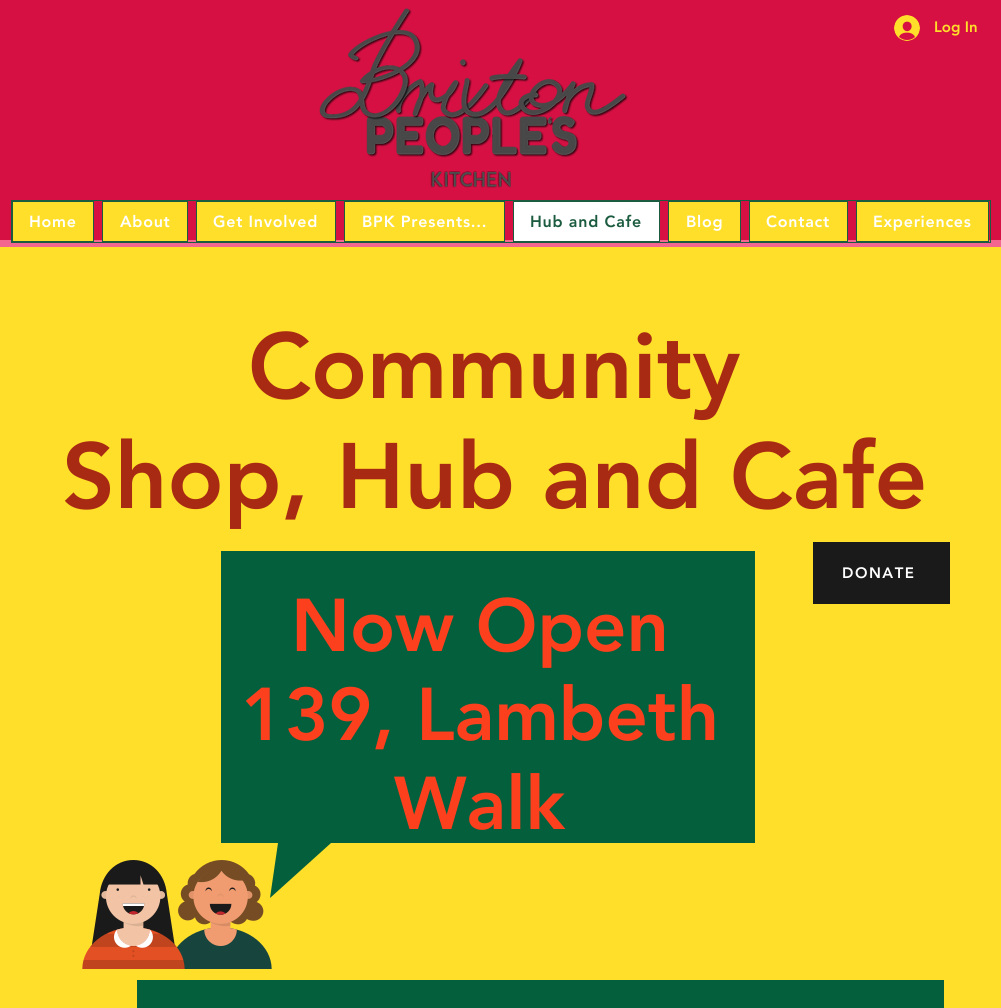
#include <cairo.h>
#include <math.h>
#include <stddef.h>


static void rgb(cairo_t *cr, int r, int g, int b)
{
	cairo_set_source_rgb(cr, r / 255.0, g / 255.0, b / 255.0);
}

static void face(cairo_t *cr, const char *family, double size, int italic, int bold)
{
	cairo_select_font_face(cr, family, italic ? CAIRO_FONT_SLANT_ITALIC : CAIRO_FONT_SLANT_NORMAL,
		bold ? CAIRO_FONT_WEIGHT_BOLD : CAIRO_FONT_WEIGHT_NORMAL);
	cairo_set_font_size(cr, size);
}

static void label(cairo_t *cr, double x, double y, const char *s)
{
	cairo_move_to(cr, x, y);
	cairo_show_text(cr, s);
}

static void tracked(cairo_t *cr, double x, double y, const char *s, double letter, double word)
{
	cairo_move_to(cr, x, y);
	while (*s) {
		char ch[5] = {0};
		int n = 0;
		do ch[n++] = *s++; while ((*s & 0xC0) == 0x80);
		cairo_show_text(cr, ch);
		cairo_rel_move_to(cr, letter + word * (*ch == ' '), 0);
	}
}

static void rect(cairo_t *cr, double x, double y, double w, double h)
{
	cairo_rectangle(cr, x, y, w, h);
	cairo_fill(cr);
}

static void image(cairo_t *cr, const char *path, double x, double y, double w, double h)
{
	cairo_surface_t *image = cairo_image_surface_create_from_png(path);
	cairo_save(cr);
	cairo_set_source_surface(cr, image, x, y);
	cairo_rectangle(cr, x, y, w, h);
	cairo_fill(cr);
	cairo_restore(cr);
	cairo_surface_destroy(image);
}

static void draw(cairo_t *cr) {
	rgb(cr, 255, 223, 41);
	cairo_paint(cr);
	rgb(cr, 214, 16, 67);
	rect(cr, 0, 0, 1001, 240);
	rgb(cr, 242, 102, 143);
	rect(cr, 0, 240, 1001, 7);
	image(cr, "image0.png", 319, 8, 309, 180);
	image(cr, "image1.png", 894, 15, 26, 26);
	face(cr, "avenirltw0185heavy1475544 Black", 15, 0, 0);
	rgb(cr, 255, 223, 41);
	label(cr, 934, 32, "Log In");
	cairo_rectangle(cr, 11.5, 200.5, 979, 42);
	rgb(cr, 27, 91, 63);
	cairo_set_line_width(cr, 1);
	cairo_stroke(cr);
	rgb(cr, 255, 223, 41);
	cairo_rectangle(cr, 12.5, 201.5, 81, 40);
	cairo_fill_preserve(cr);
	rgb(cr, 27, 91, 63);
	cairo_stroke(cr);
	face(cr, "avenirltw0185heavy1475544 Black", 16, 0, 0);
	rgb(cr, 255, 255, 255);
	tracked(cr, 29, 227, "Home", 0.75, 0);
	rgb(cr, 255, 223, 41);
	cairo_rectangle(cr, 102.5, 201.5, 85, 40);
	cairo_fill_preserve(cr);
	rgb(cr, 27, 91, 63);
	cairo_stroke(cr);
	rgb(cr, 255, 255, 255);
	tracked(cr, 120, 227, "About", 0.75, 0);
	rgb(cr, 255, 223, 41);
	cairo_rectangle(cr, 196.5, 201.5, 139, 40);
	cairo_fill_preserve(cr);
	rgb(cr, 27, 91, 63);
	cairo_stroke(cr);
	rgb(cr, 255, 255, 255);
	tracked(cr, 213, 227, "Get Involved", 0.75, 0);
	rgb(cr, 255, 223, 41);
	cairo_rectangle(cr, 344.5, 201.5, 160, 40);
	cairo_fill_preserve(cr);
	rgb(cr, 27, 91, 63);
	cairo_stroke(cr);
	rgb(cr, 255, 255, 255);
	tracked(cr, 362, 227, "BPK Presents...", 0.75, 0);
	cairo_rectangle(cr, 513.5, 201.5, 146, 40);
	cairo_fill_preserve(cr);
	rgb(cr, 27, 91, 63);
	cairo_stroke(cr);
	tracked(cr, 530, 227, "Hub and Cafe", 0.75, 0);
	rgb(cr, 255, 223, 41);
	cairo_rectangle(cr, 668.5, 201.5, 72, 40);
	cairo_fill_preserve(cr);
	rgb(cr, 27, 91, 63);
	cairo_stroke(cr);
	rgb(cr, 255, 255, 255);
	tracked(cr, 686, 227, "Blog", 0.75, 0);
	rgb(cr, 255, 223, 41);
	cairo_rectangle(cr, 749.5, 201.5, 98, 40);
	cairo_fill_preserve(cr);
	rgb(cr, 27, 91, 63);
	cairo_stroke(cr);
	rgb(cr, 255, 255, 255);
	tracked(cr, 766, 227, "Contact", 0.75, 0);
	rgb(cr, 255, 223, 41);
	cairo_rectangle(cr, 856.5, 201.5, 132, 40);
	cairo_fill_preserve(cr);
	rgb(cr, 27, 91, 63);
	cairo_stroke(cr);
	rgb(cr, 255, 255, 255);
	tracked(cr, 873, 227, "Experiences", 0.75, 0);
	face(cr, "avenirltw0185heavy1475544 Black", 92, 0, 0);
	rgb(cr, 168, 42, 19);
	label(cr, 248, 398, "Community");
	label(cr, 62, 508, "Shop, Hub and Cafe");
	rgb(cr, 3, 95, 60);
	cairo_new_path(cr);
	cairo_move_to(cr, 221, 551);
	cairo_line_to(cr, 755, 551);
	cairo_line_to(cr, 755, 843);
	cairo_line_to(cr, 331, 843);
	cairo_line_to(cr, 270, 898);
	cairo_line_to(cr, 278, 843);
	cairo_line_to(cr, 221, 843);
	cairo_close_path(cr);
	cairo_fill(cr);
	rgb(cr, 26, 26, 26);
	rect(cr, 813, 542, 137, 62);
	face(cr, "avenirltw0185heavy1475544 Black", 15, 0, 0);
	rgb(cr, 255, 255, 255);
	tracked(cr, 842, 578, "DONATE", 1.5, 0);
	face(cr, "avenirltw0185heavy1475544 Black", 74, 0, 0);
	rgb(cr, 252, 63, 29);
	label(cr, 291, 651, "Now Open");
	label(cr, 241, 740, "139, Lambeth");
	label(cr, 394, 829, "Walk");
	image(cr, "image2.png", 82, 860, 190, 109);
	rgb(cr, 3, 95, 60);
	cairo_new_path(cr);
	cairo_move_to(cr, 944, 980);
	cairo_line_to(cr, 137, 980);
	cairo_line_to(cr, 137, 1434);
	cairo_line_to(cr, 778, 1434);
	cairo_line_to(cr, 870, 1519);
	cairo_line_to(cr, 858, 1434);
	cairo_line_to(cr, 944, 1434);
	cairo_close_path(cr);
	cairo_fill(cr);
}

int main(void) {
	cairo_surface_t *surface = cairo_image_surface_create(CAIRO_FORMAT_RGB24, 1001, 1008);
	cairo_t *cr = cairo_create(surface);
	cairo_font_options_t *options = cairo_font_options_create();
	cairo_font_options_set_hint_metrics(options, CAIRO_HINT_METRICS_OFF);
	cairo_font_options_set_hint_style(options, CAIRO_HINT_STYLE_NONE);
	cairo_set_font_options(cr, options);
	cairo_set_miter_limit(cr, 4);
	draw(cr);
	cairo_surface_write_to_png(surface, "render.png");
	cairo_font_options_destroy(options);
	cairo_destroy(cr);
	cairo_surface_destroy(surface);
	return 0;
}
